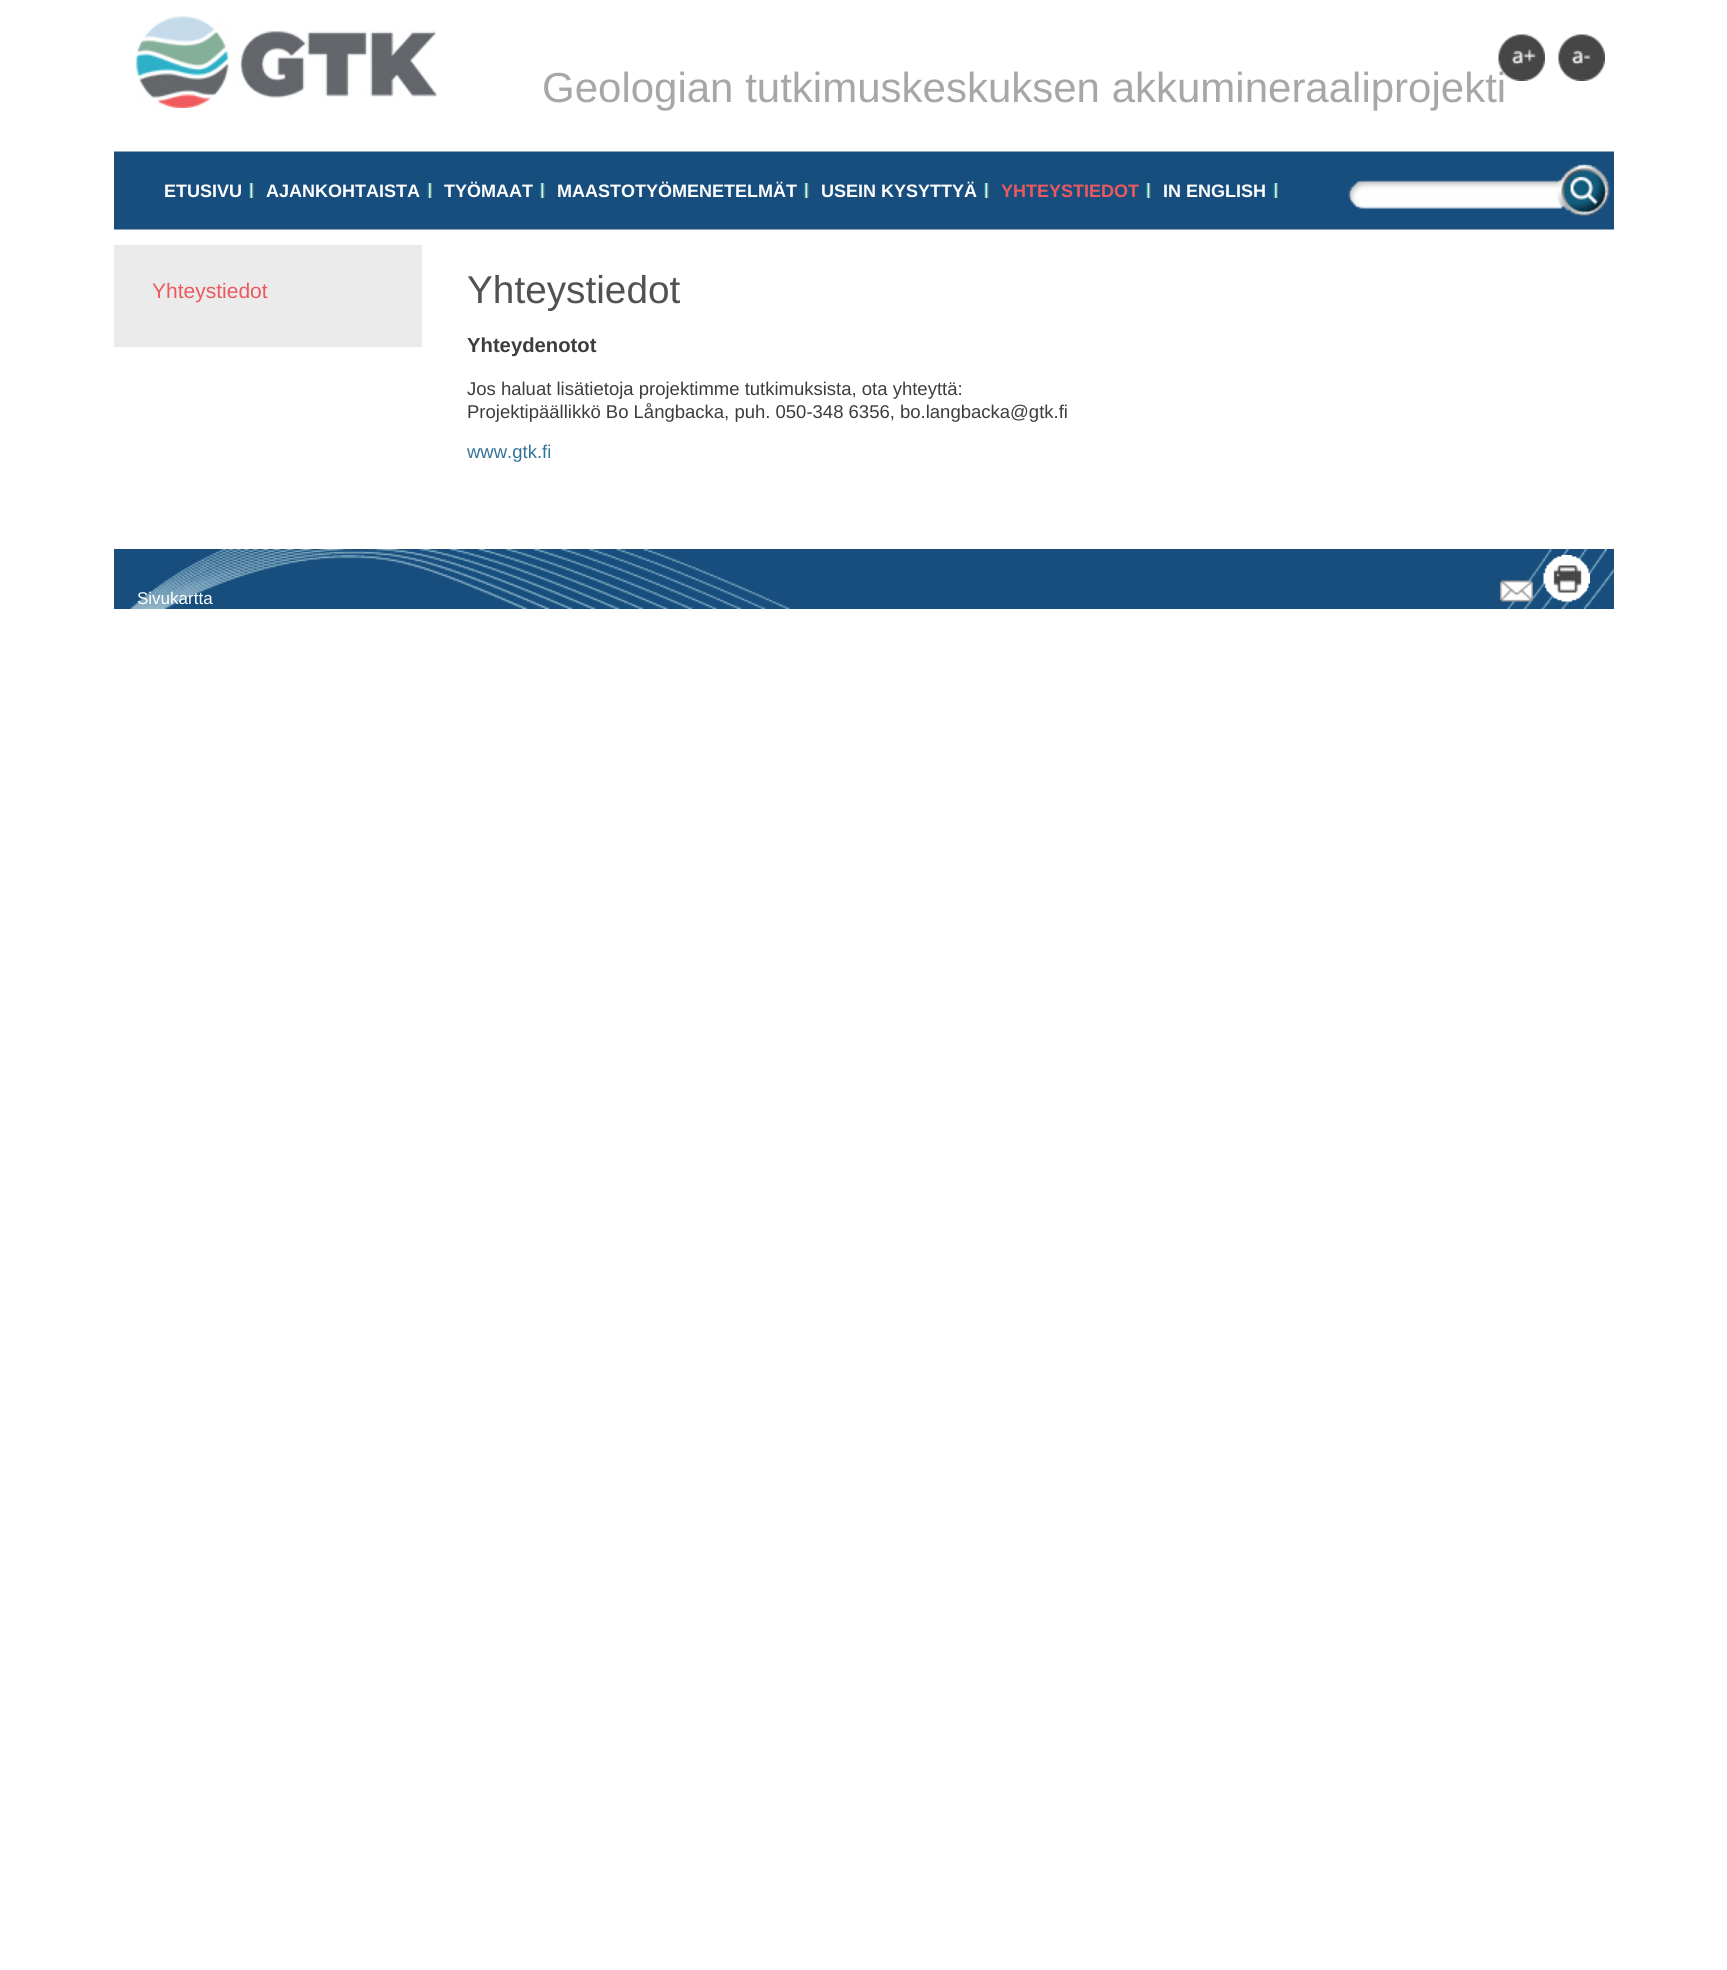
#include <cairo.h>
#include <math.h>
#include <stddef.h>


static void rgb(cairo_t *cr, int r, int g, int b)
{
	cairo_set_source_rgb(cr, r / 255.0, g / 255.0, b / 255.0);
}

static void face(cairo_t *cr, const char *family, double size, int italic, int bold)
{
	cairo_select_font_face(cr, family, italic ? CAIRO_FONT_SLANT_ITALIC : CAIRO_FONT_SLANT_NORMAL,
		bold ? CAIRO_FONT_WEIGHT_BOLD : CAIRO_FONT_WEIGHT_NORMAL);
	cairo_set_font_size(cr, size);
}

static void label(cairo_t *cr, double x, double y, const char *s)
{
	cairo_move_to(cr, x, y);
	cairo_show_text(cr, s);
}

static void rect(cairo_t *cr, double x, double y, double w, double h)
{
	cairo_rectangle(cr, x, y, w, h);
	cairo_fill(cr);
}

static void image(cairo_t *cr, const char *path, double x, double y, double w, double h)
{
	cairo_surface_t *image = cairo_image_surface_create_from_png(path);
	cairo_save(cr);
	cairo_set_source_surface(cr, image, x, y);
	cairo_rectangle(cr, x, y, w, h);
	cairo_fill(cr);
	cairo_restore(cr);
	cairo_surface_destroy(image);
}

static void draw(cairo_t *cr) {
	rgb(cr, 255, 255, 255);
	cairo_paint(cr);
	image(cr, "image0.png", 136, 16, 301, 92);
	face(cr, "Liberation Sans", 42, 0, 0);
	rgb(cr, 167, 167, 167);
	label(cr, 542, 102, "Geologian tutkimuskeskuksen akkumineraaliprojekti");
	image(cr, "image1.png", 1498, 34, 47, 47);
	image(cr, "image2.png", 1558, 34, 47, 47);
	image(cr, "image3.png", 114, 151, 1500, 79);
	image(cr, "image4.png", 249, 183, 5, 15);
	face(cr, "Liberation Sans", 18, 0, 1);
	rgb(cr, 255, 255, 255);
	label(cr, 164, 197, "ETUSIVU");
	image(cr, "image5.png", 427, 183, 5, 15);
	label(cr, 266, 197, "AJANKOHTAISTA");
	image(cr, "image4.png", 540, 183, 5, 15);
	label(cr, 444, 197, "TYÖMAAT");
	image(cr, "image4.png", 804, 183, 5, 15);
	label(cr, 557, 197, "MAASTOTYÖMENETELMÄT");
	image(cr, "image4.png", 984, 183, 5, 15);
	label(cr, 821, 197, "USEIN KYSYTTYÄ");
	image(cr, "image6.png", 1146, 183, 5, 15);
	rgb(cr, 235, 89, 94);
	label(cr, 1001, 197, "YHTEYSTIEDOT");
	image(cr, "image5.png", 1273, 183, 5, 15);
	rgb(cr, 255, 255, 255);
	label(cr, 1163, 197, "IN ENGLISH");
	rgb(cr, 235, 235, 235);
	rect(cr, 114, 245, 308, 102);
	face(cr, "Liberation Sans", 21, 0, 0);
	rgb(cr, 235, 89, 94);
	label(cr, 152, 298, "Yhteystiedot");
	face(cr, "Liberation Sans", 38.75, 0, 0);
	rgb(cr, 82, 82, 82);
	label(cr, 467, 303, "Yhteystiedot");
	face(cr, "Liberation Sans", 20.25, 0, 1);
	rgb(cr, 61, 61, 61);
	label(cr, 467, 352, "Yhteydenotot");
	face(cr, "Liberation Sans", 18.5, 0, 0);
	label(cr, 467, 395, "Jos haluat lisätietoja projektimme tutkimuksista, ota yhteyttä:");
	label(cr, 467, 418, "Projektipäällikkö Bo Långbacka, puh. 050-348 6356, bo.langbacka@gtk.fi");
	rgb(cr, 51, 115, 153);
	label(cr, 467, 458, "www.gtk.fi");
	rgb(cr, 23, 78, 126);
	rect(cr, 114, 549, 16, 60);
	image(cr, "image7.png", 130, 549, 1484, 60);
	face(cr, "Liberation Sans", 17, 0, 0);
	rgb(cr, 255, 255, 255);
	label(cr, 137, 604, "Sivukartta");
	image(cr, "image8.png", 1500, 580, 33, 22);
	image(cr, "image9.png", 1543, 555, 47, 47);
}

int main(void) {
	cairo_surface_t *surface = cairo_image_surface_create(CAIRO_FORMAT_RGB24, 1727, 1970);
	cairo_t *cr = cairo_create(surface);
	cairo_font_options_t *options = cairo_font_options_create();
	cairo_font_options_set_hint_metrics(options, CAIRO_HINT_METRICS_OFF);
	cairo_font_options_set_hint_style(options, CAIRO_HINT_STYLE_NONE);
	cairo_set_font_options(cr, options);
	cairo_set_miter_limit(cr, 4);
	draw(cr);
	cairo_surface_write_to_png(surface, "render.png");
	cairo_font_options_destroy(options);
	cairo_destroy(cr);
	cairo_surface_destroy(surface);
	return 0;
}
